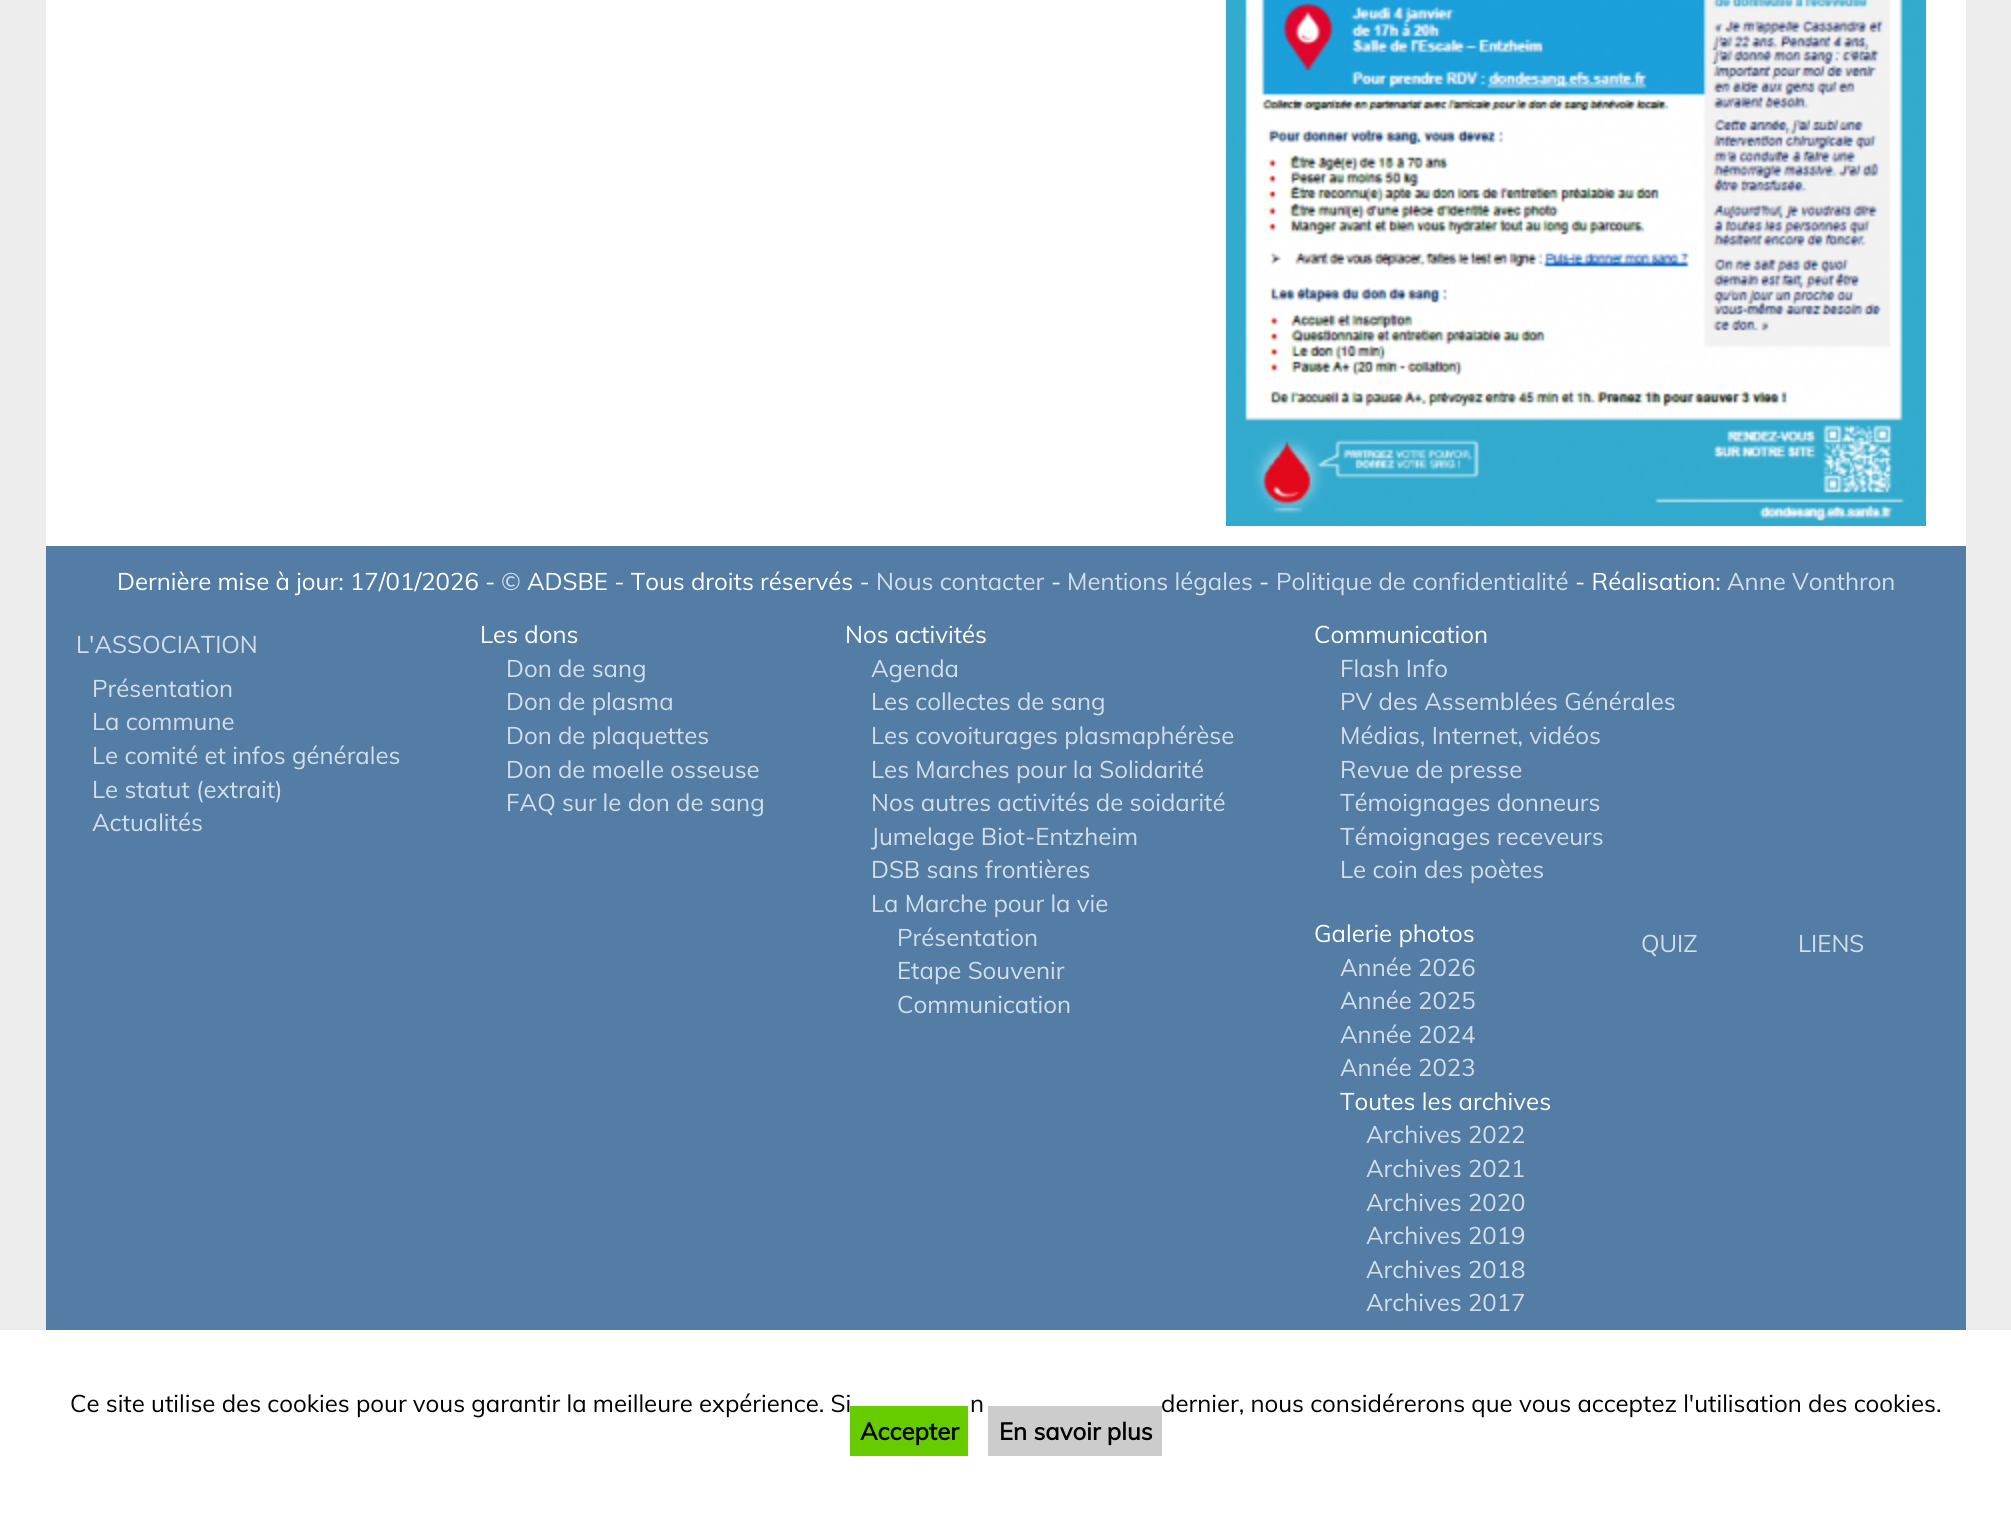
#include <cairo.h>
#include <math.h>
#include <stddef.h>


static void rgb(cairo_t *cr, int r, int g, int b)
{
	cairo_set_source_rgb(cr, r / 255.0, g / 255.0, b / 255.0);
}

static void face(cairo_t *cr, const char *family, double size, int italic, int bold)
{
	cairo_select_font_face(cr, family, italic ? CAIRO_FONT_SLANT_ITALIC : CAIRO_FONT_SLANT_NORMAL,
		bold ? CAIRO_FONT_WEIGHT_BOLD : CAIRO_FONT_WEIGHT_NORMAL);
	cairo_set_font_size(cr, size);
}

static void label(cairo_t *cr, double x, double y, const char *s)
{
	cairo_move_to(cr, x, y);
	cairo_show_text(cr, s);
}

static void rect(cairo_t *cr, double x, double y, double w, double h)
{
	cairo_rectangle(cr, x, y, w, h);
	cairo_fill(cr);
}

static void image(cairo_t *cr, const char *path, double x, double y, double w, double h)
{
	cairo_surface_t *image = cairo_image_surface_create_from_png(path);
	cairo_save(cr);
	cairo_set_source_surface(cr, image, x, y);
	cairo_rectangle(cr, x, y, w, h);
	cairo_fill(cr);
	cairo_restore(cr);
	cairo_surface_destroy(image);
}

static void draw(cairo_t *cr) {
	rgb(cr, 237, 237, 237);
	cairo_paint(cr);
	rgb(cr, 255, 255, 255);
	rect(cr, 46, 0, 1920, 546);
	image(cr, "image0.png", 1226, 0, 700, 526);
	rgb(cr, 83, 125, 165);
	rect(cr, 46, 546, 1920, 784);
	face(cr, "Muli", 24, 0, 0);
	rgb(cr, 255, 255, 255);
	label(cr, 117, 590, "Dernière mise à jour: 17/01/2026 -");
	rgb(cr, 212, 222, 232);
	label(cr, 501, 590, "©");
	rgb(cr, 255, 255, 255);
	label(cr, 527, 590, "ADSBE - Tous droits réservés -");
	rgb(cr, 212, 222, 232);
	label(cr, 876, 590, "Nous contacter");
	rgb(cr, 255, 255, 255);
	label(cr, 1051, 590, "-");
	rgb(cr, 212, 222, 232);
	label(cr, 1067, 590, "Mentions légales");
	rgb(cr, 255, 255, 255);
	label(cr, 1259, 590, "-");
	rgb(cr, 212, 222, 232);
	label(cr, 1276, 590, "Politique de confidentialité");
	rgb(cr, 255, 255, 255);
	label(cr, 1575, 590, "- Réalisation:");
	rgb(cr, 212, 222, 232);
	label(cr, 1727, 590, "Anne Vonthron");
	label(cr, 76, 653, "L'ASSOCIATION");
	label(cr, 92, 697, "Présentation");
	label(cr, 92, 730, "La commune");
	label(cr, 92, 764, "Le comité et infos générales");
	label(cr, 92, 798, "Le statut (extrait)");
	label(cr, 92, 831, "Actualités");
	rgb(cr, 255, 255, 255);
	label(cr, 480, 643, "Les dons");
	rgb(cr, 212, 222, 232);
	label(cr, 506, 677, "Don de sang");
	label(cr, 506, 710, "Don de plasma");
	label(cr, 506, 744, "Don de plaquettes");
	label(cr, 506, 778, "Don de moelle osseuse");
	label(cr, 506, 811, "FAQ sur le don de sang");
	rgb(cr, 255, 255, 255);
	label(cr, 845, 643, "Nos activités");
	rgb(cr, 212, 222, 232);
	label(cr, 871, 677, "Agenda");
	label(cr, 871, 710, "Les collectes de sang");
	label(cr, 871, 744, "Les covoiturages plasmaphérèse");
	label(cr, 871, 778, "Les Marches pour la Solidarité");
	label(cr, 871, 811, "Nos autres activités de soidarité");
	label(cr, 871, 845, "Jumelage Biot-Entzheim");
	label(cr, 871, 878, "DSB sans frontières");
	label(cr, 871, 912, "La Marche pour la vie");
	label(cr, 897, 946, "Présentation");
	label(cr, 897, 979, "Etape Souvenir");
	label(cr, 897, 1013, "Communication");
	rgb(cr, 255, 255, 255);
	label(cr, 1314, 643, "Communication");
	rgb(cr, 212, 222, 232);
	label(cr, 1340, 677, "Flash Info");
	label(cr, 1340, 710, "PV des Assemblées Générales");
	label(cr, 1340, 744, "Médias, Internet, vidéos");
	label(cr, 1340, 778, "Revue de presse");
	label(cr, 1340, 811, "Témoignages donneurs");
	label(cr, 1340, 845, "Témoignages receveurs");
	label(cr, 1340, 878, "Le coin des poètes");
	rgb(cr, 255, 255, 255);
	label(cr, 1314, 942, "Galerie photos");
	rgb(cr, 212, 222, 232);
	label(cr, 1340, 976, "Année 2026");
	label(cr, 1340, 1009, "Année 2025");
	label(cr, 1340, 1043, "Année 2024");
	label(cr, 1340, 1076, "Année 2023");
	rgb(cr, 255, 255, 255);
	label(cr, 1340, 1110, "Toutes les archives");
	rgb(cr, 212, 222, 232);
	label(cr, 1366, 1143, "Archives 2022");
	label(cr, 1366, 1177, "Archives 2021");
	label(cr, 1366, 1211, "Archives 2020");
	label(cr, 1366, 1244, "Archives 2019");
	label(cr, 1366, 1278, "Archives 2018");
	label(cr, 1366, 1311, "Archives 2017");
	label(cr, 1641, 952, "QUIZ");
	label(cr, 1798, 952, "LIENS");
	rgb(cr, 255, 255, 255);
	rect(cr, 0, 1330, 2011, 196);
	rgb(cr, 0, 0, 0);
	label(cr, 70, 1412, "Ce site utilise des cookies pour vous garantir la meilleure expérience. Si");
	label(cr, 970, 1412, "n");
	label(cr, 1161, 1412, "dernier, nous considérerons que vous acceptez l'utilisation des cookies.");
	rgb(cr, 102, 204, 0);
	rect(cr, 850, 1406, 118, 50);
	face(cr, "Muli", 24, 0, 1);
	rgb(cr, 0, 0, 0);
	label(cr, 860, 1440, "Accepter");
	rgb(cr, 204, 204, 204);
	rect(cr, 988, 1406, 174, 50);
	rgb(cr, 0, 0, 0);
	label(cr, 999, 1440, "En savoir plus");
}

int main(void) {
	cairo_surface_t *surface = cairo_image_surface_create(CAIRO_FORMAT_RGB24, 2011, 1526);
	cairo_t *cr = cairo_create(surface);
	cairo_font_options_t *options = cairo_font_options_create();
	cairo_font_options_set_hint_metrics(options, CAIRO_HINT_METRICS_OFF);
	cairo_font_options_set_hint_style(options, CAIRO_HINT_STYLE_NONE);
	cairo_set_font_options(cr, options);
	cairo_set_miter_limit(cr, 4);
	draw(cr);
	cairo_surface_write_to_png(surface, "render.png");
	cairo_font_options_destroy(options);
	cairo_destroy(cr);
	cairo_surface_destroy(surface);
	return 0;
}
